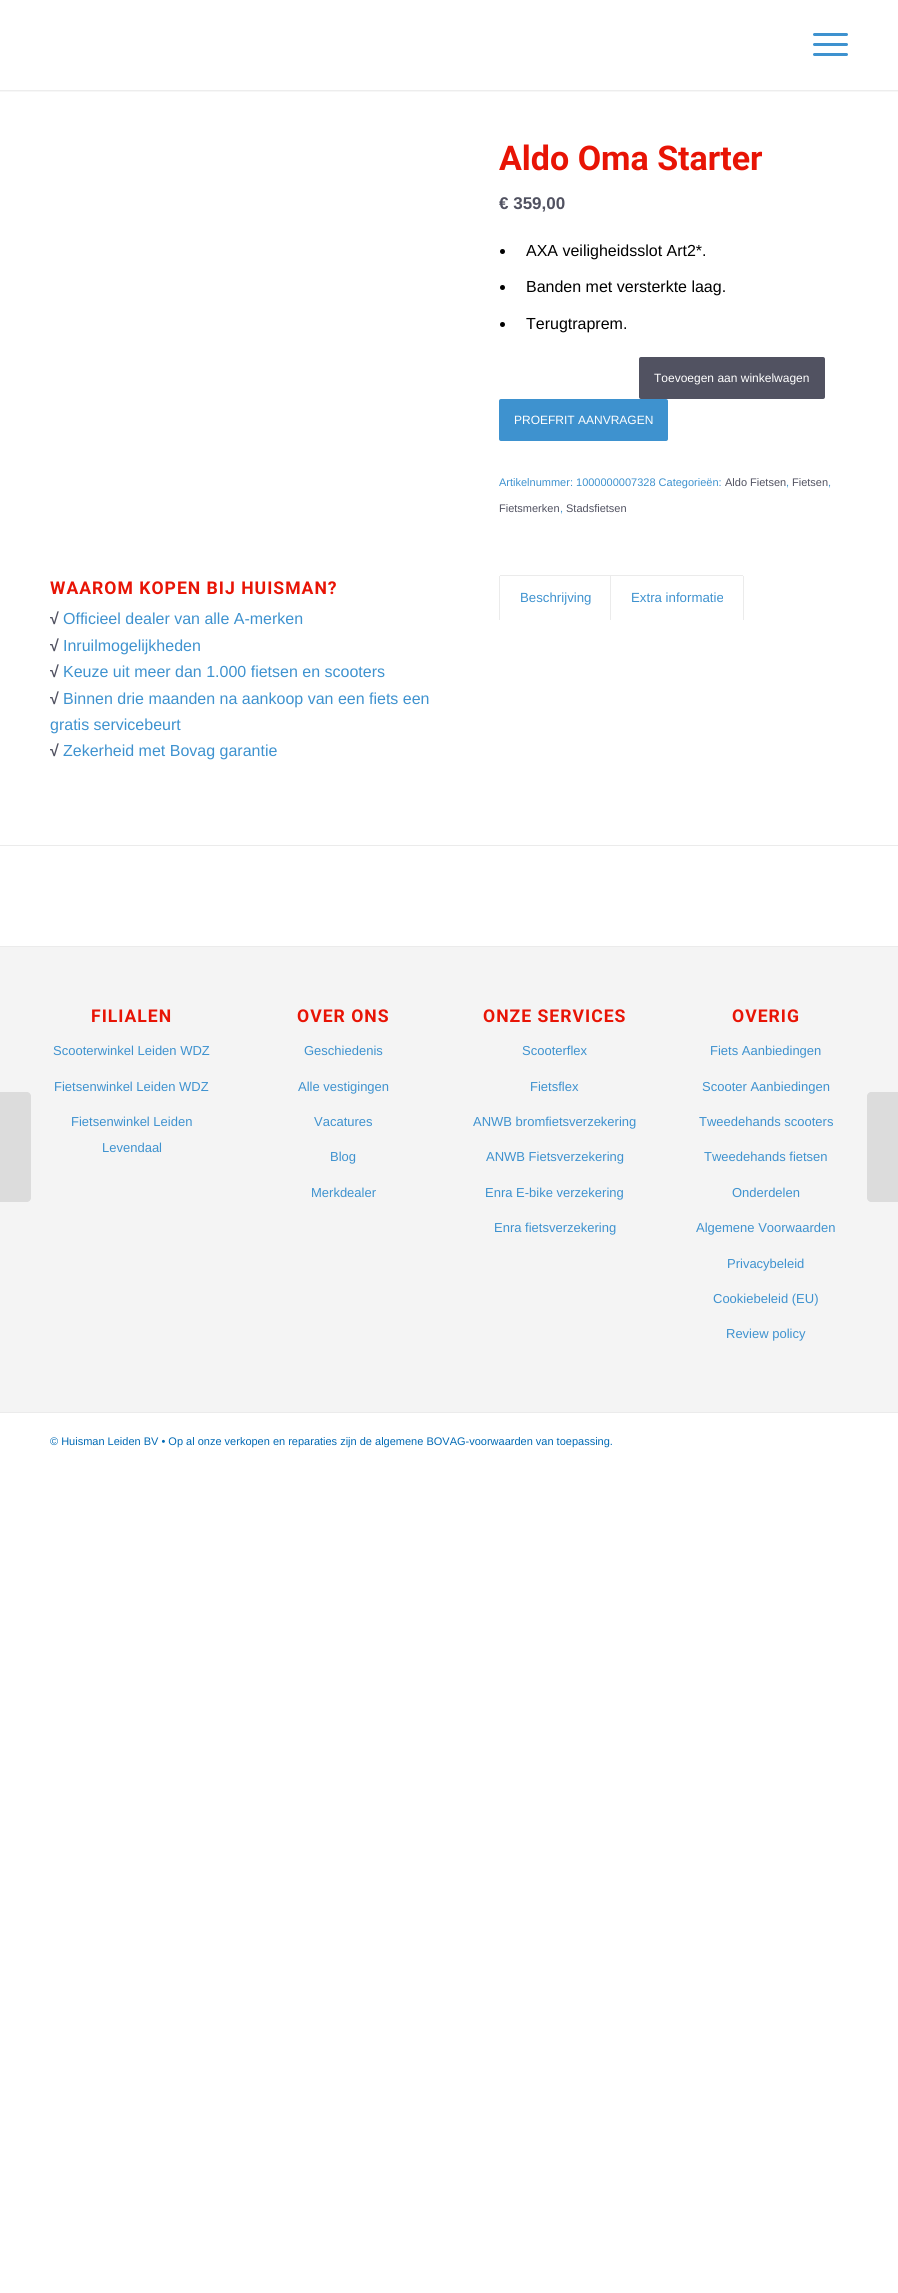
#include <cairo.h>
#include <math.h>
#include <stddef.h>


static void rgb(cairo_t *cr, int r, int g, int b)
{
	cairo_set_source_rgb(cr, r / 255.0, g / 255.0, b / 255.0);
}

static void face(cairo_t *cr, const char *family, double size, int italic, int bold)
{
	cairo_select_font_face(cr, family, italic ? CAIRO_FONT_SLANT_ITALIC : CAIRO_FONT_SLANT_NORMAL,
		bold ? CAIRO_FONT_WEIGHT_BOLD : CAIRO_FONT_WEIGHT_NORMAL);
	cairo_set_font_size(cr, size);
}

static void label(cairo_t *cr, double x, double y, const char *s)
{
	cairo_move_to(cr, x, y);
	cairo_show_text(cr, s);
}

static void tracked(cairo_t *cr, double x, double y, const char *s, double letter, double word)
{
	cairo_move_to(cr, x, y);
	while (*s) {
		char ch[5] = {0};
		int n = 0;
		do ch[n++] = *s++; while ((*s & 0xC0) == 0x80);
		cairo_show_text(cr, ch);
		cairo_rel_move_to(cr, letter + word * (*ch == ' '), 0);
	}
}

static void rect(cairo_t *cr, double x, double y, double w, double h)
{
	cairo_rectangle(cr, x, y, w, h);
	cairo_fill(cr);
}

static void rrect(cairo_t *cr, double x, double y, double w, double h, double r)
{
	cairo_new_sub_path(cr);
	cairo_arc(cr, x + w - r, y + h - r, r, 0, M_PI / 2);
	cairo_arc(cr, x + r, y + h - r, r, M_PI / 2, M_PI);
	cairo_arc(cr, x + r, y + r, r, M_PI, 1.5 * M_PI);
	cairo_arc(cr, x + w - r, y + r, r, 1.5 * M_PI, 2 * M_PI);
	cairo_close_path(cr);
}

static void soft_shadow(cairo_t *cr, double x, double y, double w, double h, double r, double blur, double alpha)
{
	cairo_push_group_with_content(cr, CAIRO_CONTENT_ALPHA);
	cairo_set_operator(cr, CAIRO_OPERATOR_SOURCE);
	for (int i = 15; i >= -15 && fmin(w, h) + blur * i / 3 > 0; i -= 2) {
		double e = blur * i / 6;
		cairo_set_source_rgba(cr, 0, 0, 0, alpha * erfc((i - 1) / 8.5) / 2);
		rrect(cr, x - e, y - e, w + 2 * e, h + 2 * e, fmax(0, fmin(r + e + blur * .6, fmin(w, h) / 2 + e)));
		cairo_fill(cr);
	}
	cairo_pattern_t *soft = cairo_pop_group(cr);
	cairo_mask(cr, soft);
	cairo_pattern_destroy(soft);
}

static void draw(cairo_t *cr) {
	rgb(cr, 255, 255, 255);
	cairo_paint(cr);
	cairo_save(cr);
	cairo_rectangle(cr, 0, 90, 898, 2);
	cairo_clip(cr);
	rgb(cr, 0, 0, 0);
	soft_shadow(cr, -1, -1, 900, 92, 0, 1, 0.1);
	cairo_restore(cr);
	rgb(cr, 62, 146, 207);
	rrect(cr, 813, 43, 35, 3, 1.5);
	cairo_fill(cr);
	rrect(cr, 813, 33, 35, 3, 1.5);
	cairo_fill(cr);
	rrect(cr, 813, 53, 35, 3, 1.5);
	cairo_fill(cr);
	rgb(cr, 244, 244, 244);
	rect(cr, 0, 947, 898, 465);
	rgb(cr, 220, 220, 220);
	cairo_new_path(cr);
	cairo_move_to(cr, 0, 1092);
	cairo_line_to(cr, 27, 1092);
	cairo_curve_to(cr, 29, 1092, 31, 1094, 31, 1096);
	cairo_line_to(cr, 31, 1198);
	cairo_curve_to(cr, 31, 1200, 29, 1202, 27, 1202);
	cairo_line_to(cr, 0, 1202);
	cairo_close_path(cr);
	cairo_fill(cr);
	face(cr, "Roboto", 34, 0, 1);
	rgb(cr, 232, 20, 5);
	label(cr, 499, 170, "Aldo Oma Starter");
	face(cr, "Liberation Sans", 17, 0, 1);
	rgb(cr, 81, 82, 97);
	label(cr, 499, 209, "€ 359,00");
	rgb(cr, 0, 0, 0);
	cairo_new_path(cr);
	cairo_arc(cr, 502.5, 251.5, 2.5, 0, 2 * M_PI);
	cairo_fill(cr);
	face(cr, "Liberation Sans", 16, 0, 0);
	label(cr, 526, 256, "AXA veiligheidsslot Art2*.");
	cairo_new_path(cr);
	cairo_arc(cr, 502.5, 287.5, 2.5, 0, 2 * M_PI);
	cairo_fill(cr);
	label(cr, 526, 292, "Banden met versterkte laag.");
	cairo_new_path(cr);
	cairo_arc(cr, 502.5, 324.5, 2.5, 0, 2 * M_PI);
	cairo_fill(cr);
	label(cr, 526, 329, "Terugtraprem.");
	rgb(cr, 81, 82, 97);
	rrect(cr, 639, 357, 186, 42, 2);
	cairo_fill(cr);
	face(cr, "Liberation Sans", 12, 0, 0);
	rgb(cr, 255, 255, 255);
	label(cr, 654, 382, "Toevoegen aan winkelwagen");
	rgb(cr, 62, 146, 207);
	rrect(cr, 499, 399, 169, 42, 2);
	cairo_fill(cr);
	rgb(cr, 255, 255, 255);
	label(cr, 514, 424, "PROEFRIT AANVRAGEN");
	face(cr, "Liberation Sans", 11, 0, 0);
	rgb(cr, 62, 146, 207);
	label(cr, 499, 486, "Artikelnummer: 1000000007328 Categorieën:");
	rgb(cr, 81, 82, 97);
	label(cr, 725, 486, "Aldo Fietsen");
	rgb(cr, 62, 146, 207);
	label(cr, 786, 486, ",");
	rgb(cr, 81, 82, 97);
	label(cr, 792, 486, "Fietsen");
	rgb(cr, 62, 146, 207);
	label(cr, 828, 486, ",");
	rgb(cr, 81, 82, 97);
	label(cr, 499, 512, "Fietsmerken");
	rgb(cr, 62, 146, 207);
	label(cr, 560, 512, ",");
	rgb(cr, 81, 82, 97);
	label(cr, 566, 512, "Stadsfietsen");
	rgb(cr, 235, 235, 235);
	rect(cr, 500, 575, 111, 1);
	rect(cr, 610, 575, 1, 45);
	rect(cr, 499, 576, 1, 44);
	face(cr, "Liberation Sans", 13.25, 0, 0);
	rgb(cr, 62, 146, 207);
	label(cr, 520, 602, "Beschrijving");
	rgb(cr, 235, 235, 235);
	rect(cr, 610, 575, 133, 1);
	rect(cr, 743, 576, 1, 44);
	rgb(cr, 62, 146, 207);
	label(cr, 631, 602, "Extra informatie");
	face(cr, "Roboto", 17.6, 0, 1);
	rgb(cr, 232, 20, 5);
	tracked(cr, 50, 594, "WAAROM KOPEN BIJ HUISMAN?", 1, 0);
	face(cr, "Liberation Sans", 16, 0, 1);
	rgb(cr, 81, 82, 97);
	label(cr, 50, 624, "√");
	face(cr, "Liberation Sans", 16, 0, 0);
	rgb(cr, 62, 146, 207);
	label(cr, 63, 624, "Officieel dealer van alle A-merken");
	face(cr, "Liberation Sans", 16, 0, 1);
	rgb(cr, 81, 82, 97);
	label(cr, 50, 651, "√");
	face(cr, "Liberation Sans", 16, 0, 0);
	rgb(cr, 62, 146, 207);
	label(cr, 63, 651, "Inruilmogelijkheden");
	face(cr, "Liberation Sans", 16, 0, 1);
	rgb(cr, 81, 82, 97);
	label(cr, 50, 677, "√");
	face(cr, "Liberation Sans", 16, 0, 0);
	rgb(cr, 62, 146, 207);
	label(cr, 63, 677, "Keuze uit meer dan 1.000 fietsen en scooters");
	face(cr, "Liberation Sans", 16, 0, 1);
	rgb(cr, 81, 82, 97);
	label(cr, 50, 704, "√");
	face(cr, "Liberation Sans", 16, 0, 0);
	rgb(cr, 62, 146, 207);
	label(cr, 63, 704, "Binnen drie maanden na aankoop van een fiets een");
	label(cr, 50, 730, "gratis servicebeurt");
	face(cr, "Liberation Sans", 16, 0, 1);
	rgb(cr, 81, 82, 97);
	label(cr, 50, 756, "√");
	face(cr, "Liberation Sans", 16, 0, 0);
	rgb(cr, 62, 146, 207);
	label(cr, 63, 756, "Zekerheid met Bovag garantie");
	rgb(cr, 235, 235, 235);
	rect(cr, 0, 845, 898, 1);
	rect(cr, 0, 946, 898, 1);
	face(cr, "Roboto", 17.6, 0, 1);
	rgb(cr, 232, 20, 5);
	tracked(cr, 91, 1022, "FILIALEN", 1, 0);
	face(cr, "Liberation Sans", 13, 0, 0);
	rgb(cr, 62, 146, 207);
	label(cr, 53, 1055, "Scooterwinkel Leiden WDZ");
	label(cr, 54, 1091, "Fietsenwinkel Leiden WDZ");
	label(cr, 71, 1126, "Fietsenwinkel Leiden");
	label(cr, 102, 1152, "Levendaal");
	face(cr, "Roboto", 17.6, 0, 1);
	rgb(cr, 232, 20, 5);
	tracked(cr, 297, 1022, "OVER ONS", 1, 0);
	face(cr, "Liberation Sans", 13, 0, 0);
	rgb(cr, 62, 146, 207);
	label(cr, 304, 1055, "Geschiedenis");
	label(cr, 298, 1091, "Alle vestigingen");
	label(cr, 314, 1126, "Vacatures");
	label(cr, 330, 1161, "Blog");
	label(cr, 311, 1197, "Merkdealer");
	face(cr, "Roboto", 17.6, 0, 1);
	rgb(cr, 232, 20, 5);
	tracked(cr, 483, 1022, "ONZE SERVICES", 1, 0);
	face(cr, "Liberation Sans", 13, 0, 0);
	rgb(cr, 62, 146, 207);
	label(cr, 522, 1055, "Scooterflex");
	label(cr, 530, 1091, "Fietsflex");
	label(cr, 473, 1126, "ANWB bromfietsverzekering");
	label(cr, 486, 1161, "ANWB Fietsverzekering");
	label(cr, 485, 1197, "Enra E-bike verzekering");
	label(cr, 494, 1232, "Enra fietsverzekering");
	face(cr, "Roboto", 17.6, 0, 1);
	rgb(cr, 232, 20, 5);
	tracked(cr, 732, 1022, "OVERIG", 1, 0);
	face(cr, "Liberation Sans", 13, 0, 0);
	rgb(cr, 62, 146, 207);
	label(cr, 710, 1055, "Fiets Aanbiedingen");
	label(cr, 702, 1091, "Scooter Aanbiedingen");
	label(cr, 699, 1126, "Tweedehands scooters");
	label(cr, 704, 1161, "Tweedehands fietsen");
	label(cr, 732, 1197, "Onderdelen");
	label(cr, 696, 1232, "Algemene Voorwaarden");
	label(cr, 727, 1268, "Privacybeleid");
	label(cr, 713, 1303, "Cookiebeleid (EU)");
	label(cr, 726, 1338, "Review policy");
	rgb(cr, 235, 235, 235);
	rect(cr, 0, 1412, 898, 1);
	face(cr, "Liberation Sans", 11, 0, 0);
	rgb(cr, 0, 105, 180);
	label(cr, 50, 1445, "© Huisman Leiden BV • Op al onze verkopen en reparaties zijn de algemene BOVAG-voorwaarden van toepassing.");
	rgb(cr, 220, 220, 220);
	cairo_new_path(cr);
	cairo_move_to(cr, 871, 1092);
	cairo_line_to(cr, 898, 1092);
	cairo_line_to(cr, 898, 1202);
	cairo_line_to(cr, 871, 1202);
	cairo_curve_to(cr, 869, 1202, 867, 1200, 867, 1198);
	cairo_line_to(cr, 867, 1096);
	cairo_curve_to(cr, 867, 1094, 869, 1092, 871, 1092);
	cairo_close_path(cr);
	cairo_fill(cr);
}

int main(void) {
	cairo_surface_t *surface = cairo_image_surface_create(CAIRO_FORMAT_RGB24, 898, 2293);
	cairo_t *cr = cairo_create(surface);
	cairo_font_options_t *options = cairo_font_options_create();
	cairo_font_options_set_hint_metrics(options, CAIRO_HINT_METRICS_OFF);
	cairo_font_options_set_hint_style(options, CAIRO_HINT_STYLE_NONE);
	cairo_set_font_options(cr, options);
	cairo_set_miter_limit(cr, 4);
	draw(cr);
	cairo_surface_write_to_png(surface, "render.png");
	cairo_font_options_destroy(options);
	cairo_destroy(cr);
	cairo_surface_destroy(surface);
	return 0;
}
